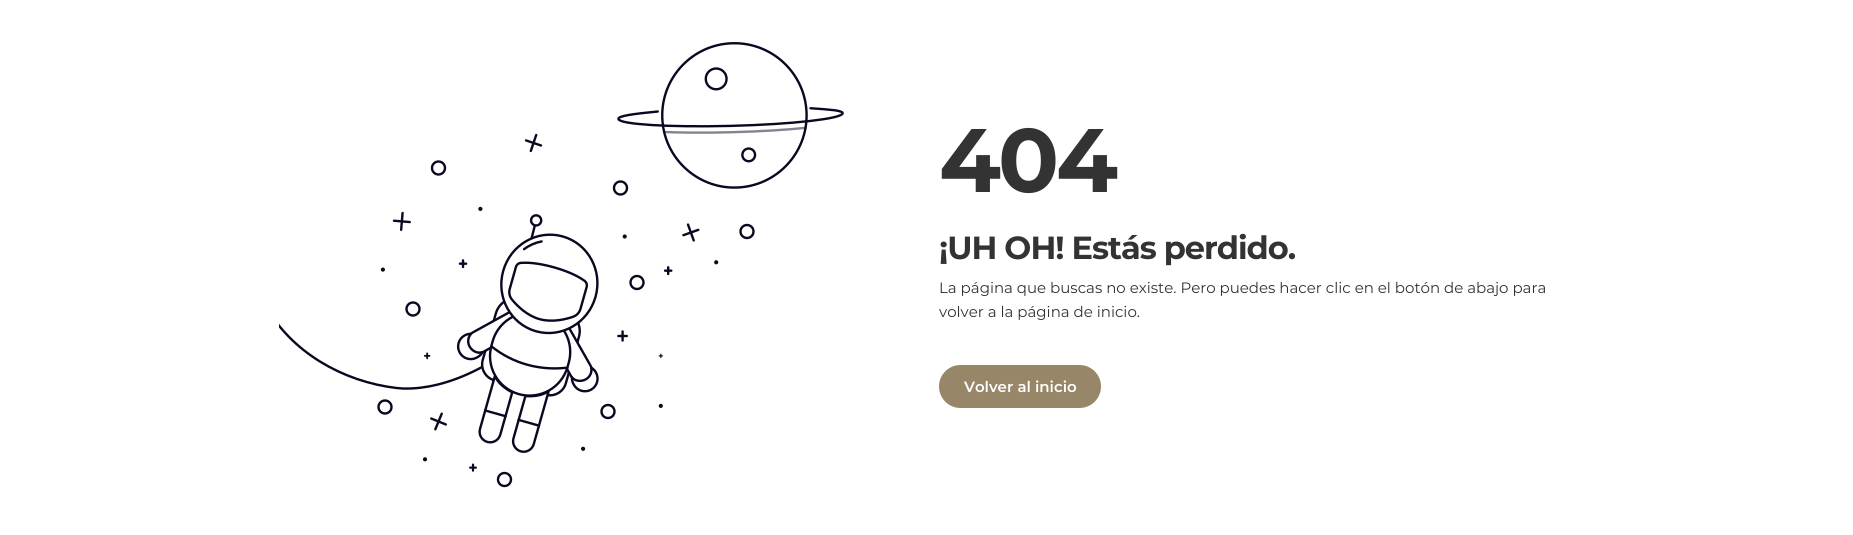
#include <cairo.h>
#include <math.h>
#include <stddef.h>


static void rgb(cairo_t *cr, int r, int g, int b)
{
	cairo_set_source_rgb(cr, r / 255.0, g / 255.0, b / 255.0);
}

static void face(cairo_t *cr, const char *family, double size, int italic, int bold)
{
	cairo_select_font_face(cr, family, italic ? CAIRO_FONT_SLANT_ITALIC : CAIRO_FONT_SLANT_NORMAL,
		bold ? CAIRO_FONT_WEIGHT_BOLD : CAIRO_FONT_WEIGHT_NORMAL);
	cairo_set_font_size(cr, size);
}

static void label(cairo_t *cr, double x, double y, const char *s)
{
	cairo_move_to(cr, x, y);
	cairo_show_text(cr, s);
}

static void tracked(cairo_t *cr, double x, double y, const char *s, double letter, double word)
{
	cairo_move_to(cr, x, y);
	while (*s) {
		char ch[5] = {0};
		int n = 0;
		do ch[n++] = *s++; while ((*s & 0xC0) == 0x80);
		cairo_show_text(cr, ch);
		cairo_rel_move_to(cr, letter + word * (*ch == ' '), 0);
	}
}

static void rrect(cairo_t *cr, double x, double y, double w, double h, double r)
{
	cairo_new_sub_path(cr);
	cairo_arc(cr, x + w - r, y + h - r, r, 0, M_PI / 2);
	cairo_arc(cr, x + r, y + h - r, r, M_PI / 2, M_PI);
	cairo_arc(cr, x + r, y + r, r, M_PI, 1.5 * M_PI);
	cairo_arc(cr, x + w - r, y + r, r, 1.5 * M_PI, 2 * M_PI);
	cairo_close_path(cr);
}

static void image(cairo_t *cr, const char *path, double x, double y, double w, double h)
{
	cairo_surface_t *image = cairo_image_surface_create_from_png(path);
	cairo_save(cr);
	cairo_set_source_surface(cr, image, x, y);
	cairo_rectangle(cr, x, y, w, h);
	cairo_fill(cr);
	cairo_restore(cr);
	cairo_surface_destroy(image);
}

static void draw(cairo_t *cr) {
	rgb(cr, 255, 255, 255);
	cairo_paint(cr);
	image(cr, "image0.png", 279, 42, 565, 446);
	face(cr, "Montserrat", 90, 0, 1);
	rgb(cr, 51, 51, 51);
	tracked(cr, 939, 192, "404", -3, 0);
	face(cr, "Montserrat", 32, 0, 1);
	tracked(cr, 939, 259, "¡UH OH! Estás perdido.", -1, 0);
	face(cr, "Montserrat", 15, 0, 0);
	label(cr, 939, 293, "La página que buscas no existe. Pero puedes hacer clic en el botón de abajo para");
	label(cr, 939, 317, "volver a la página de inicio.");
	rgb(cr, 151, 134, 103);
	rrect(cr, 939, 365, 162, 43, 21.5);
	cairo_fill(cr);
	face(cr, "Montserrat SemiBold", 15, 0, 0);
	rgb(cr, 255, 255, 255);
	label(cr, 964, 392, "Volver al inicio");
}

int main(void) {
	cairo_surface_t *surface = cairo_image_surface_create(CAIRO_FORMAT_RGB24, 1853, 535);
	cairo_t *cr = cairo_create(surface);
	cairo_font_options_t *options = cairo_font_options_create();
	cairo_font_options_set_hint_metrics(options, CAIRO_HINT_METRICS_OFF);
	cairo_font_options_set_hint_style(options, CAIRO_HINT_STYLE_NONE);
	cairo_set_font_options(cr, options);
	cairo_set_miter_limit(cr, 4);
	draw(cr);
	cairo_surface_write_to_png(surface, "render.png");
	cairo_font_options_destroy(options);
	cairo_destroy(cr);
	cairo_surface_destroy(surface);
	return 0;
}
